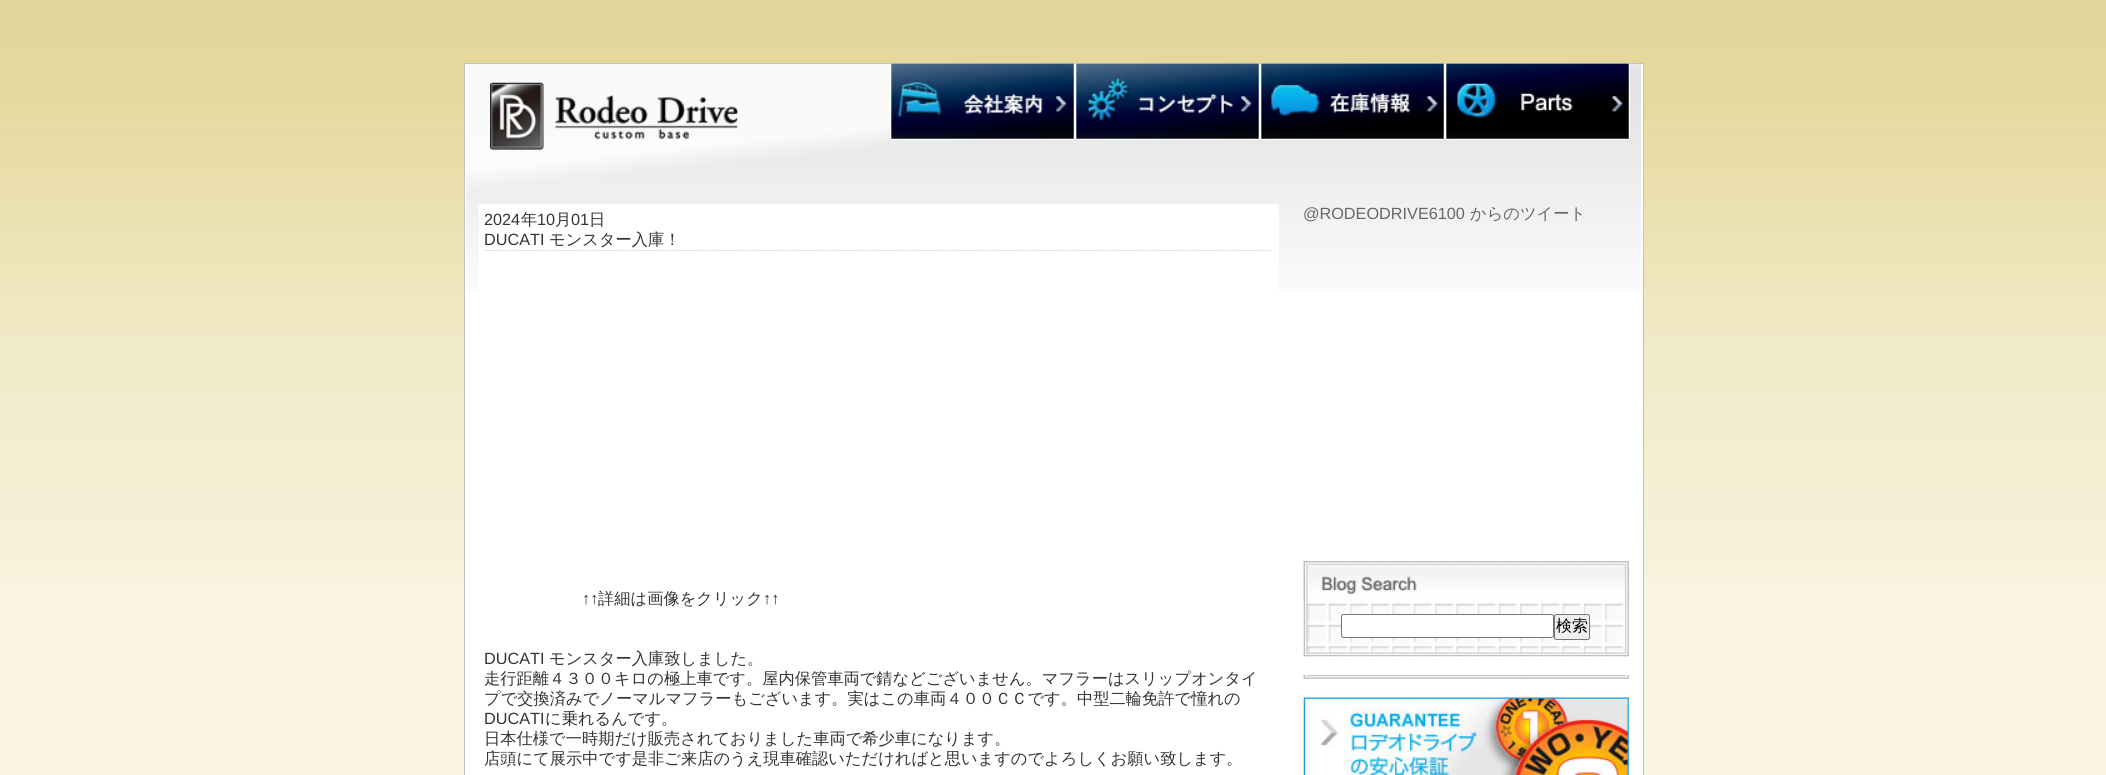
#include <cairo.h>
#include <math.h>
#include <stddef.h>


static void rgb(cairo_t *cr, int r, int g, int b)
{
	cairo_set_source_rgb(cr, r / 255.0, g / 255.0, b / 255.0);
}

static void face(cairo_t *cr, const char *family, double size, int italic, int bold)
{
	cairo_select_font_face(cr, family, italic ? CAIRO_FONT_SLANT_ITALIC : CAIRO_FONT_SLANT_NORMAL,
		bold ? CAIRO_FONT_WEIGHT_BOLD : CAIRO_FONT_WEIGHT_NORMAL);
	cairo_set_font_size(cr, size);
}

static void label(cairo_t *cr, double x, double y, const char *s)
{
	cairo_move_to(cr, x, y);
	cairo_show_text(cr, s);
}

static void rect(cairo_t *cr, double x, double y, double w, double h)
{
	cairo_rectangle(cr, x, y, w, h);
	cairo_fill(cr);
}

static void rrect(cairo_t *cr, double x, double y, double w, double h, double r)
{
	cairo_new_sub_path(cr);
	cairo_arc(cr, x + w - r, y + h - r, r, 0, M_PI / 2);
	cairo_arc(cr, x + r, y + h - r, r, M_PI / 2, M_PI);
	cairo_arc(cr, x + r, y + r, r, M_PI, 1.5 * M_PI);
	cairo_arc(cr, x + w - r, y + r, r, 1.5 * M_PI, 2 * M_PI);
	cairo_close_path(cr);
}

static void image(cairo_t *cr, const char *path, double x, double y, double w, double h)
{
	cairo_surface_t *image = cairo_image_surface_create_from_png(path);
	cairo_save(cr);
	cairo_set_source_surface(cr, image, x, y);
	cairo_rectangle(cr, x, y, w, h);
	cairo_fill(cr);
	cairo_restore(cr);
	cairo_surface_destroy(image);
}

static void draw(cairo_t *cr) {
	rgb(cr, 248, 244, 225);
	cairo_paint(cr);
	image(cr, "image0.png", 0, 0, 2106, 580);
	rgb(cr, 255, 255, 255);
	rect(cr, 465, 64, 1178, 711);
	image(cr, "image1.png", 466, 64, 1176, 227);
	cairo_rectangle(cr, 464.5, 63.5, 1179, 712);
	rgb(cr, 197, 192, 198);
	cairo_set_line_width(cr, 1);
	cairo_stroke(cr);
	image(cr, "image2.png", 490, 82, 248, 68);
	image(cr, "image3.png", 890, 63, 185, 77);
	image(cr, "image4.png", 1075, 63, 185, 77);
	image(cr, "image5.png", 1260, 63, 185, 77);
	image(cr, "image6.png", 1445, 63, 185, 77);
	rgb(cr, 255, 255, 255);
	rect(cr, 479, 204, 800, 87);
	cairo_new_path(cr);
	cairo_move_to(cr, 485, 250.5);
	cairo_line_to(cr, 1272.5, 250.5);
	rgb(cr, 204, 204, 204);
	cairo_set_line_width(cr, 1.2);
	cairo_set_dash(cr, (double[]){1.25, 1.25}, 2, 0);
	cairo_stroke(cr);
	face(cr, "Liberation Sans", 16.25, 0, 0);
	rgb(cr, 51, 51, 51);
	label(cr, 484, 225, "2024");
	face(cr, "WenQuanYi Zen Hei Medium", 16.25, 0, 0);
	label(cr, 521, 225, "年");
	face(cr, "Liberation Sans", 16.25, 0, 0);
	label(cr, 537, 225, "10");
	face(cr, "WenQuanYi Zen Hei Medium", 16.25, 0, 0);
	label(cr, 555, 225, "月");
	face(cr, "Liberation Sans", 16.25, 0, 0);
	label(cr, 571, 225, "01");
	face(cr, "WenQuanYi Zen Hei Medium", 16.25, 0, 0);
	label(cr, 589, 225, "日");
	face(cr, "Liberation Sans", 16.25, 0, 0);
	label(cr, 484, 245, "DUCATI");
	face(cr, "WenQuanYi Zen Hei Medium", 16.25, 0, 0);
	label(cr, 549, 245, "モンスター入庫！");
	face(cr, "Liberation Sans", 16.25, 0, 0);
	label(cr, 582, 604, "↑↑");
	face(cr, "WenQuanYi Zen Hei Medium", 16.25, 0, 0);
	label(cr, 598, 604, "詳細は画像をクリック");
	face(cr, "Liberation Sans", 16.25, 0, 0);
	label(cr, 763, 604, "↑↑");
	label(cr, 484, 664, "DUCATI");
	face(cr, "WenQuanYi Zen Hei Medium", 16.25, 0, 0);
	label(cr, 549, 664, "モンスター入庫致しました。");
	label(cr, 484, 684, "走行距離４３００キロの極上車です。屋内保管車両で錆などございません。マフラーはスリップオンタイ");
	label(cr, 484, 704, "プで交換済みでノーマルマフラーもございます。実はこの車両４００ＣＣです。中型二輪免許で憧れの");
	face(cr, "Liberation Sans", 16.25, 0, 0);
	label(cr, 484, 724, "DUCATI");
	face(cr, "WenQuanYi Zen Hei Medium", 16.25, 0, 0);
	label(cr, 545, 724, "に乗れるんです。");
	label(cr, 484, 744, "日本仕様で一時期だけ販売されておりました車両で希少車になります。");
	label(cr, 484, 764, "店頭にて展示中です是非ご来店のうえ現車確認いただければと思いますのでよろしくお願い致します。");
	face(cr, "Liberation Sans", 16.25, 0, 0);
	rgb(cr, 102, 102, 102);
	label(cr, 1303, 219, "@RODEODRIVE6100");
	face(cr, "WenQuanYi Zen Hei Medium", 16.25, 0, 0);
	label(cr, 1470, 219, "からのツイート");
	image(cr, "image7.png", 1303, 561, 326, 96);
	image(cr, "image8.png", 1303, 561, 326, 40);
	rgb(cr, 255, 255, 255);
	rrect(cr, 1341.5, 614.5, 212, 23, 2);
	cairo_fill_preserve(cr);
	rgb(cr, 118, 118, 118);
	cairo_set_line_width(cr, 1);
	cairo_set_dash(cr, NULL, 0, 0);
	cairo_stroke(cr);
	rgb(cr, 239, 239, 239);
	rrect(cr, 1554.5, 614.5, 35, 25, 2);
	cairo_fill_preserve(cr);
	rgb(cr, 118, 118, 118);
	cairo_stroke(cr);
	face(cr, "WenQuanYi Zen Hei Medium", 16, 0, 0);
	rgb(cr, 0, 0, 0);
	label(cr, 1556, 631, "検索");
	image(cr, "image9.png", 1303, 652, 326, 5);
	image(cr, "image10.png", 1303, 675, 326, 4);
	image(cr, "image11.png", 1303, 675, 326, 4);
	image(cr, "image12.png", 1303, 697, 326, 78);
}

int main(void) {
	cairo_surface_t *surface = cairo_image_surface_create(CAIRO_FORMAT_RGB24, 2106, 775);
	cairo_t *cr = cairo_create(surface);
	cairo_font_options_t *options = cairo_font_options_create();
	cairo_font_options_set_hint_metrics(options, CAIRO_HINT_METRICS_OFF);
	cairo_font_options_set_hint_style(options, CAIRO_HINT_STYLE_NONE);
	cairo_set_font_options(cr, options);
	cairo_set_miter_limit(cr, 4);
	draw(cr);
	cairo_surface_write_to_png(surface, "render.png");
	cairo_font_options_destroy(options);
	cairo_destroy(cr);
	cairo_surface_destroy(surface);
	return 0;
}
